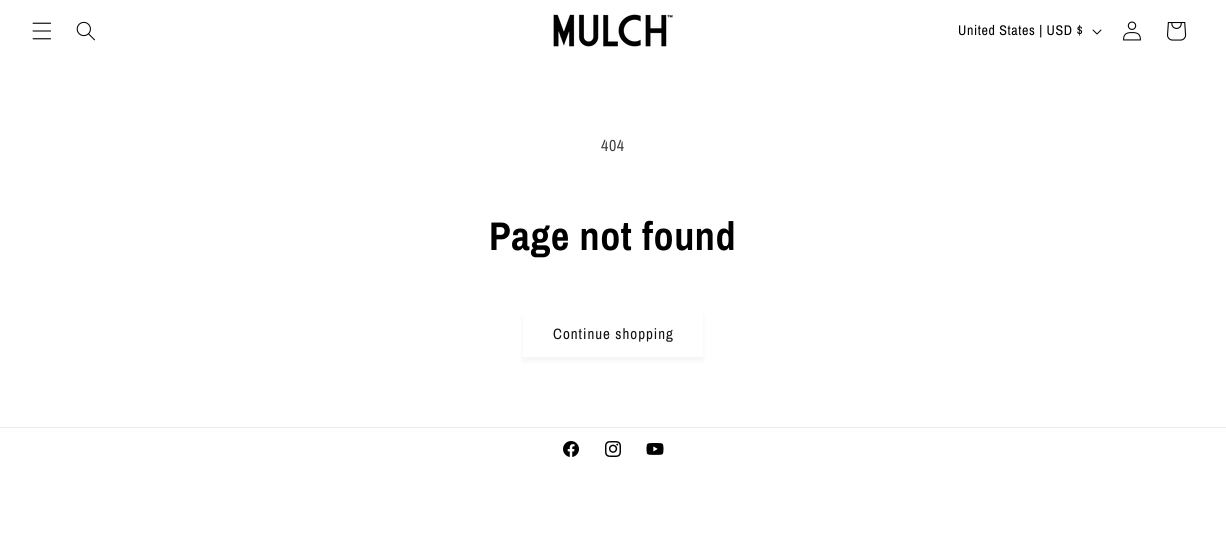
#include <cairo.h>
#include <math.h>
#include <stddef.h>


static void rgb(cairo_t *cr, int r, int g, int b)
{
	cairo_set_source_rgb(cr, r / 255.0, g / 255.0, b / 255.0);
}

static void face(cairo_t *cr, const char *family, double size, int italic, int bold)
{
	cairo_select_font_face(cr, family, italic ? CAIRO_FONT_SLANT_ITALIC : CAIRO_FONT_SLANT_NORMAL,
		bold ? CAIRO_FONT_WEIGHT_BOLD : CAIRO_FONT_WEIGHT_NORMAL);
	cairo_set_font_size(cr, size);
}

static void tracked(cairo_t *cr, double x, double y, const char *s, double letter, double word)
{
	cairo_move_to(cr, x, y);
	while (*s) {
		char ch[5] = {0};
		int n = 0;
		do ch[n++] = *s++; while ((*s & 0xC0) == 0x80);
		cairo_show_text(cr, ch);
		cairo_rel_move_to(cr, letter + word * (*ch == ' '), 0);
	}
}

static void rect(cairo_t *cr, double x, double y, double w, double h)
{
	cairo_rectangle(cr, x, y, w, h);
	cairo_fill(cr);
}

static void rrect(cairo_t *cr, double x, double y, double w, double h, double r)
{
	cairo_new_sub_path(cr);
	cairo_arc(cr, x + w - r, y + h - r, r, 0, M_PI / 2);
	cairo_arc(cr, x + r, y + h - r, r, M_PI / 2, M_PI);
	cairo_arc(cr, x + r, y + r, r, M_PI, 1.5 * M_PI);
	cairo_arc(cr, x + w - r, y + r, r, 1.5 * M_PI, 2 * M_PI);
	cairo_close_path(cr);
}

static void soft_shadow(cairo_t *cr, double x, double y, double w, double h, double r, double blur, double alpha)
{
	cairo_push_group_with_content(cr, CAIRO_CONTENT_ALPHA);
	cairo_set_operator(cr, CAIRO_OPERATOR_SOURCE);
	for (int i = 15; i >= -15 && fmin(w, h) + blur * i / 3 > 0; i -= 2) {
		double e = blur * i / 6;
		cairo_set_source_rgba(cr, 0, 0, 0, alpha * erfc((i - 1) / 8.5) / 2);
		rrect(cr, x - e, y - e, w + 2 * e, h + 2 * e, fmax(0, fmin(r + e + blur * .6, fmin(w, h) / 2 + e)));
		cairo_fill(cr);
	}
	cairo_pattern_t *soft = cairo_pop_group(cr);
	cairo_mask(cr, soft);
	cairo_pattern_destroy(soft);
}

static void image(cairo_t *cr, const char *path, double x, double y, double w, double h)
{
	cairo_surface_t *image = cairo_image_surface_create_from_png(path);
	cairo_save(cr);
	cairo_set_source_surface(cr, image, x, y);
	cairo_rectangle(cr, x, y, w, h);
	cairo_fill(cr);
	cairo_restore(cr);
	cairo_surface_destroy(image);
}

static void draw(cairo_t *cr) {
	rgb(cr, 255, 255, 255);
	cairo_paint(cr);
	image(cr, "image0.png", 32, 22, 20, 18);
	image(cr, "image1.png", 76, 21, 19, 20);
	image(cr, "image2.png", 553, 14, 120, 33);
	face(cr, "Archivo Narrow", 14, 0, 0);
	rgb(cr, 0, 0, 0);
	tracked(cr, 958, 35, "United States | USD $", 0.6, 0);
	image(cr, "image3.png", 1092, 29, 10, 6);
	image(cr, "image4.png", 1123, 21, 18, 20);
	image(cr, "image5.png", 1167, 22, 20, 19);
	face(cr, "Archivo Narrow", 16, 0, 0);
	rgb(cr, 64, 64, 64);
	tracked(cr, 601, 151, "404", 0.6, 0);
	face(cr, "Archivo Narrow", 40, 0, 1);
	rgb(cr, 0, 0, 0);
	tracked(cr, 489, 250, "Page not found", 0.6, 0);
	cairo_save(cr);
	cairo_set_fill_rule(cr, CAIRO_FILL_RULE_EVEN_ODD);
	cairo_new_path(cr);
	cairo_move_to(cr, 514, 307);
	cairo_line_to(cr, 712, 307);
	cairo_line_to(cr, 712, 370);
	cairo_line_to(cr, 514, 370);
	cairo_close_path(cr);
	cairo_move_to(cr, 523, 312);
	cairo_line_to(cr, 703, 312);
	cairo_line_to(cr, 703, 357);
	cairo_line_to(cr, 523, 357);
	cairo_close_path(cr);
	cairo_clip(cr);
	rgb(cr, 18, 18, 18);
	soft_shadow(cr, 523, 316, 180, 45, 0, 2.5, 0.05);
	cairo_restore(cr);
	face(cr, "Archivo Narrow", 15, 0, 0);
	rgb(cr, 18, 18, 18);
	tracked(cr, 553, 339, "Continue shopping", 1, 0);
	rgb(cr, 235, 235, 235);
	rect(cr, 0, 427, 1226, 1);
	image(cr, "image6.png", 563, 441, 16, 16);
	image(cr, "image7.png", 605, 441, 16, 16);
	image(cr, "image8.png", 646, 443, 18, 12);
}

int main(void) {
	cairo_surface_t *surface = cairo_image_surface_create(CAIRO_FORMAT_RGB24, 1226, 546);
	cairo_t *cr = cairo_create(surface);
	cairo_font_options_t *options = cairo_font_options_create();
	cairo_font_options_set_hint_metrics(options, CAIRO_HINT_METRICS_OFF);
	cairo_font_options_set_hint_style(options, CAIRO_HINT_STYLE_NONE);
	cairo_set_font_options(cr, options);
	cairo_set_miter_limit(cr, 4);
	draw(cr);
	cairo_surface_write_to_png(surface, "render.png");
	cairo_font_options_destroy(options);
	cairo_destroy(cr);
	cairo_surface_destroy(surface);
	return 0;
}
